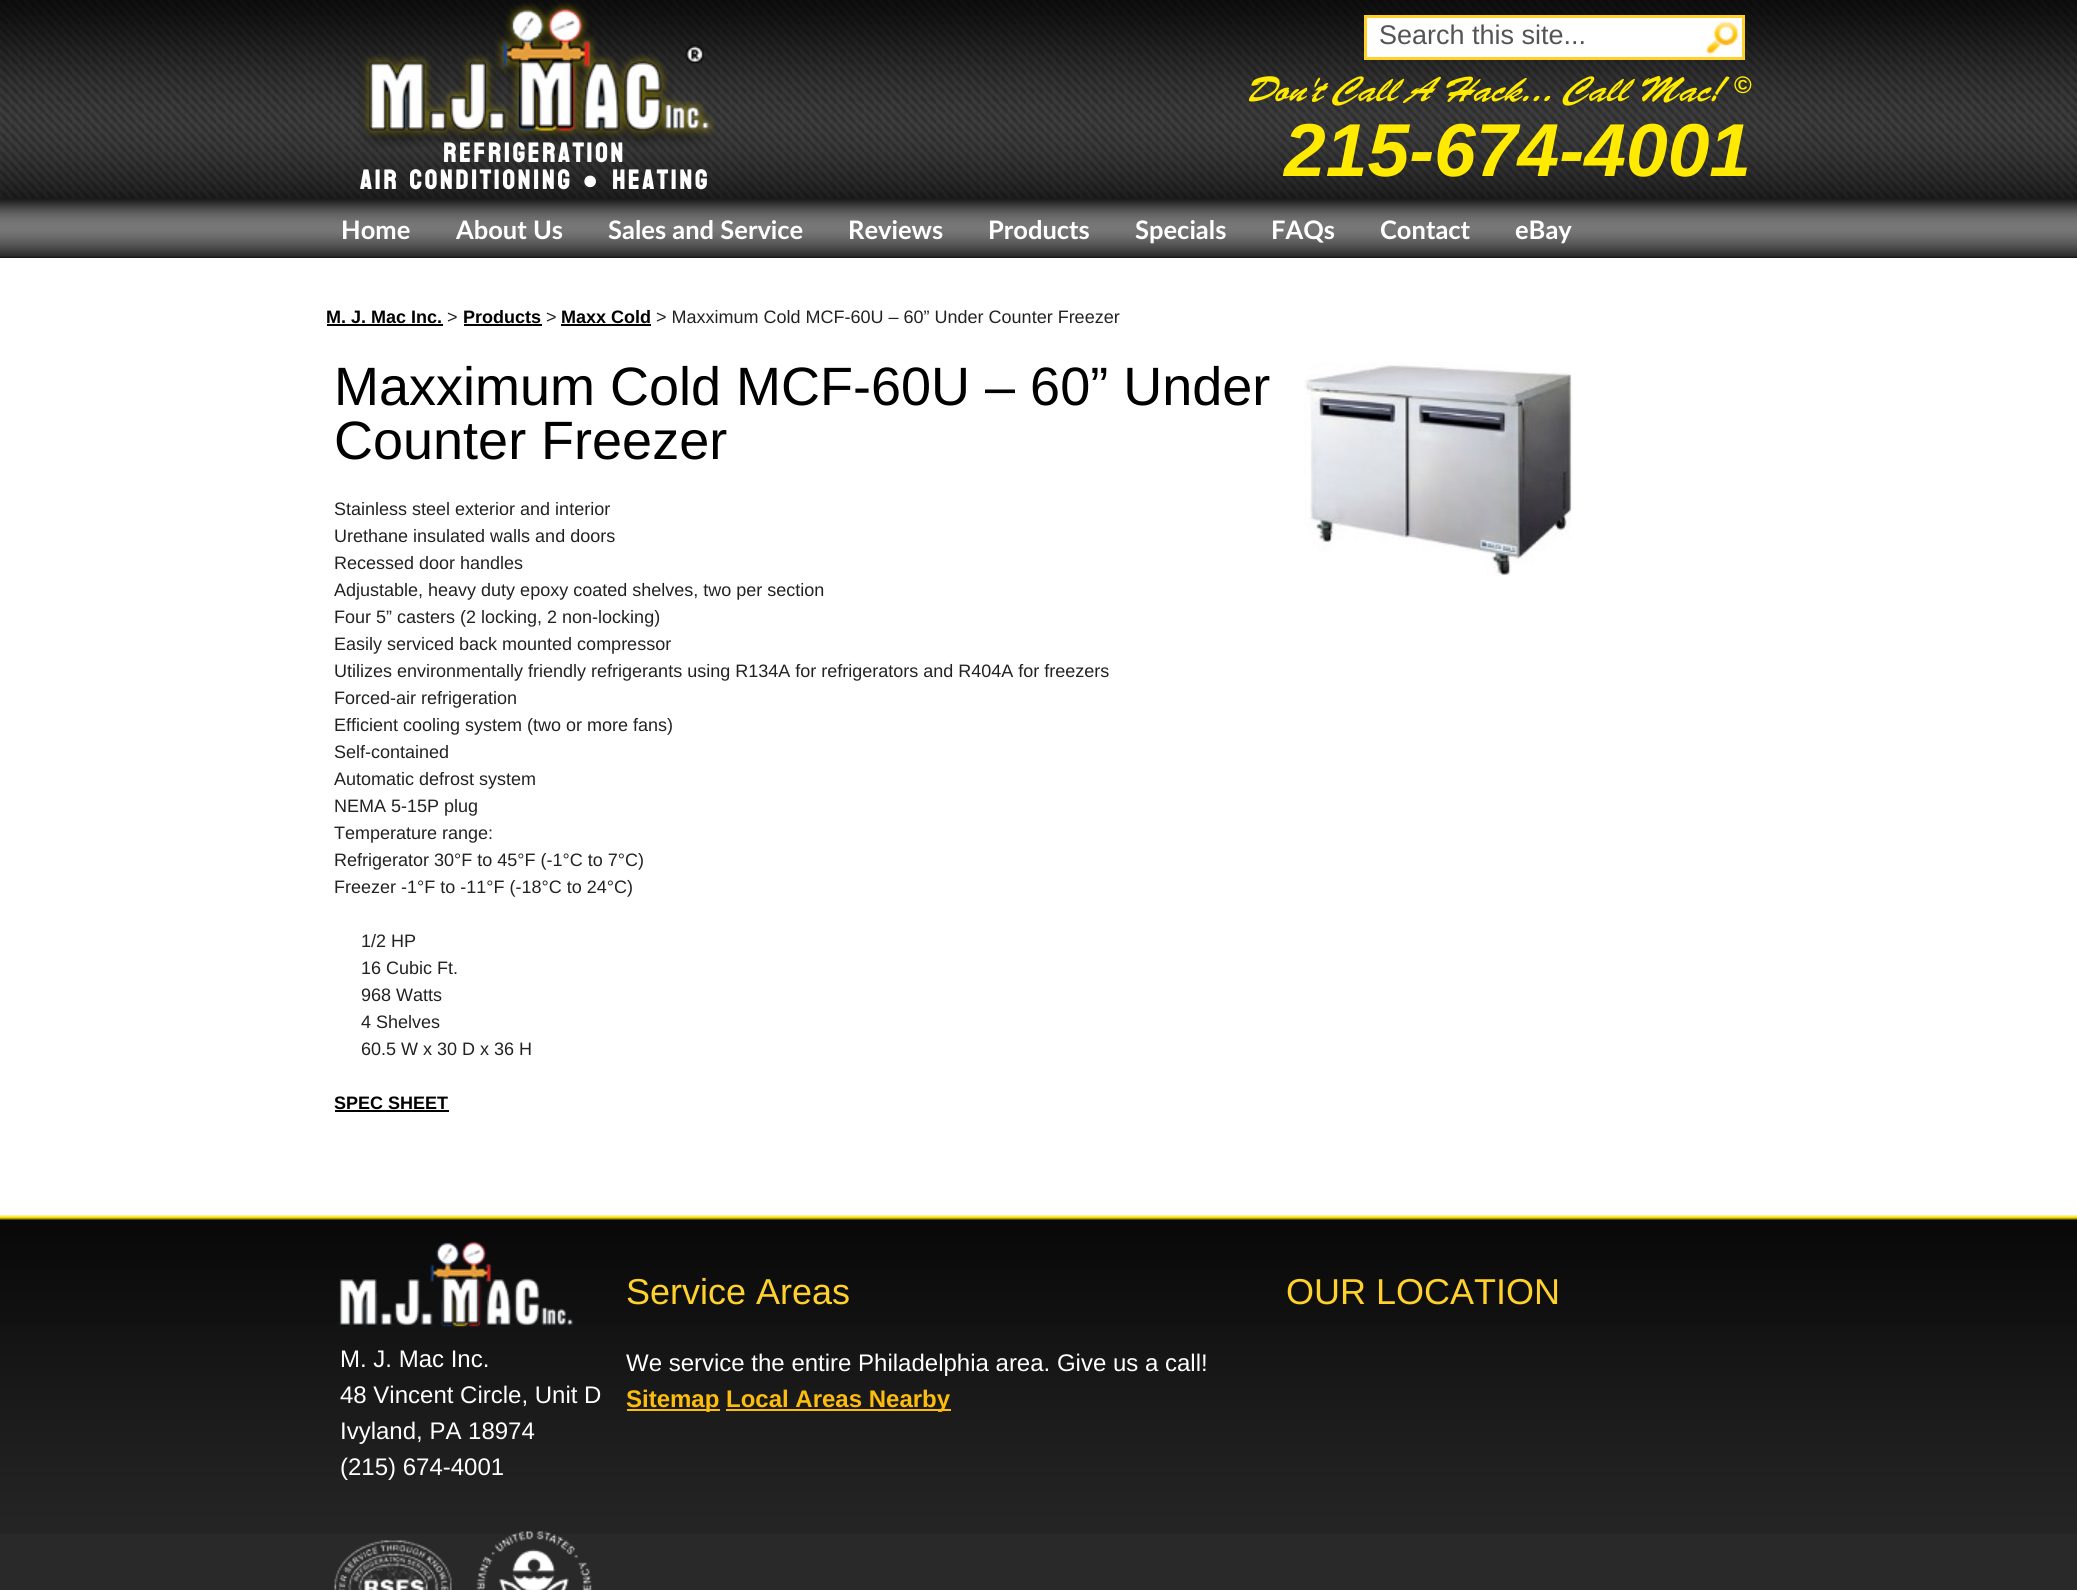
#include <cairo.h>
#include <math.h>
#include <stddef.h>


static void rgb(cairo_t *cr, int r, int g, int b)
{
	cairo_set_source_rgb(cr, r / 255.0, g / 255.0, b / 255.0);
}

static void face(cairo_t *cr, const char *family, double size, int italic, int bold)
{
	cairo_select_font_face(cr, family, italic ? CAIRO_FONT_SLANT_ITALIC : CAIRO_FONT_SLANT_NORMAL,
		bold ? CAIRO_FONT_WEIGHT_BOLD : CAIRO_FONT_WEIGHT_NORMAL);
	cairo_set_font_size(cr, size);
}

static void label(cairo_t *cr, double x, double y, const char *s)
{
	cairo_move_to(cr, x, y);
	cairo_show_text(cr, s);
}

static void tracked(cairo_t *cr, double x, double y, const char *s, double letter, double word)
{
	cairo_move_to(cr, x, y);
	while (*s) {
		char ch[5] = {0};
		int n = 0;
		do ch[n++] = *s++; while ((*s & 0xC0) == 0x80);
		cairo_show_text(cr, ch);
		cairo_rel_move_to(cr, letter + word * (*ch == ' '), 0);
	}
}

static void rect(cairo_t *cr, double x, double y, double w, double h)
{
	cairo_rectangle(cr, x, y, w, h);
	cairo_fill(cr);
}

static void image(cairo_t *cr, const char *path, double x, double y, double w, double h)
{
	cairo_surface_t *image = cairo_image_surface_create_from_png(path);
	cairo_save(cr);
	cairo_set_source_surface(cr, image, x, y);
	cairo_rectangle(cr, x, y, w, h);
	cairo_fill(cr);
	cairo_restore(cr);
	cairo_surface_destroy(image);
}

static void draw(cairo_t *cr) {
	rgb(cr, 255, 255, 255);
	cairo_paint(cr);
	image(cr, "image0.png", 0, 0, 2077, 198);
	image(cr, "image1.png", 359, 2, 356, 145);
	face(cr, "Bayon", 27, 0, 1);
	rgb(cr, 255, 255, 255);
	tracked(cr, 443, 162, "REFRIGERATION", 3, 0);
	tracked(cr, 360, 189, "AIR CONDITIONING", 3, 0);
	face(cr, "Liberation Serif", 27, 0, 1);
	tracked(cr, 582, 189, "●", 3, 0);
	face(cr, "Bayon", 27, 0, 1);
	tracked(cr, 612, 189, "HEATING", 3, 0);
	cairo_rectangle(cr, 1365.5, 16.5, 378, 42);
	cairo_fill_preserve(cr);
	rgb(cr, 255, 209, 43);
	cairo_set_line_width(cr, 3);
	cairo_stroke(cr);
	face(cr, "Liberation Sans", 27, 0, 0);
	rgb(cr, 85, 85, 85);
	label(cr, 1379, 44, "Search this site...");
	image(cr, "image2.png", 1706, 21, 33, 36);
	face(cr, "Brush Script", 36, 1, 0);
	rgb(cr, 255, 234, 0);
	label(cr, 1247, 101, "Don't Call A Hack... Call Mac!");
	face(cr, "Liberation Sans", 24, 0, 1);
	label(cr, 1734, 93, "©");
	face(cr, "Liberation Sans", 75, 1, 1);
	label(cr, 1284, 176, "215-674-4001");
	image(cr, "image3.png", 0, 198, 2077, 60);
	face(cr, "Lato", 25.5, 0, 1);
	rgb(cr, 255, 255, 255);
	label(cr, 341, 239, "Home");
	label(cr, 456, 239, "About Us");
	label(cr, 608, 239, "Sales and Service");
	label(cr, 848, 239, "Reviews");
	label(cr, 988, 239, "Products");
	label(cr, 1135, 239, "Specials");
	label(cr, 1271, 239, "FAQs");
	label(cr, 1380, 239, "Contact");
	label(cr, 1515, 239, "eBay");
	face(cr, "Liberation Sans", 18, 0, 1);
	rgb(cr, 0, 0, 0);
	label(cr, 326, 323, "M. J. Mac Inc.");
	rect(cr, 327, 324, 116, 2);
	face(cr, "Liberation Sans", 18, 0, 0);
	rgb(cr, 34, 34, 34);
	label(cr, 447, 323, ">");
	face(cr, "Liberation Sans", 18, 0, 1);
	rgb(cr, 0, 0, 0);
	label(cr, 463, 323, "Products");
	rect(cr, 464, 324, 78, 2);
	face(cr, "Liberation Sans", 18, 0, 0);
	rgb(cr, 34, 34, 34);
	label(cr, 546, 323, ">");
	face(cr, "Liberation Sans", 18, 0, 1);
	rgb(cr, 0, 0, 0);
	label(cr, 561, 323, "Maxx Cold");
	rect(cr, 561, 324, 90, 2);
	face(cr, "Liberation Sans", 18, 0, 0);
	rgb(cr, 34, 34, 34);
	label(cr, 656, 323, "> Maxximum Cold MCF-60U – 60” Under Counter Freezer");
	face(cr, "Liberation Sans", 54, 0, 0);
	rgb(cr, 0, 0, 0);
	label(cr, 334, 405, "Maxximum Cold MCF-60U – 60” Under");
	label(cr, 334, 459, "Counter Freezer");
	face(cr, "Liberation Sans", 18, 0, 0);
	rgb(cr, 34, 34, 34);
	label(cr, 334, 515, "Stainless steel exterior and interior");
	label(cr, 334, 542, "Urethane insulated walls and doors");
	label(cr, 334, 569, "Recessed door handles");
	label(cr, 334, 596, "Adjustable, heavy duty epoxy coated shelves, two per section");
	label(cr, 334, 623, "Four 5” casters (2 locking, 2 non-locking)");
	label(cr, 334, 650, "Easily serviced back mounted compressor");
	label(cr, 334, 677, "Utilizes environmentally friendly refrigerants using R134A for refrigerators and R404A for freezers");
	label(cr, 334, 704, "Forced-air refrigeration");
	label(cr, 334, 731, "Efficient cooling system (two or more fans)");
	label(cr, 334, 758, "Self-contained");
	label(cr, 334, 785, "Automatic defrost system");
	label(cr, 334, 812, "NEMA 5-15P plug");
	label(cr, 334, 839, "Temperature range:");
	label(cr, 334, 866, "Refrigerator 30°F to 45°F (-1°C to 7°C)");
	label(cr, 334, 893, "Freezer -1°F to -11°F (-18°C to 24°C)");
	label(cr, 361, 947, "1/2 HP");
	label(cr, 361, 974, "16 Cubic Ft.");
	label(cr, 361, 1001, "968 Watts");
	label(cr, 361, 1028, "4 Shelves");
	label(cr, 361, 1055, "60.5 W x 30 D x 36 H");
	face(cr, "Liberation Sans", 18, 0, 1);
	rgb(cr, 0, 0, 0);
	label(cr, 334, 1109, "SPEC SHEET");
	rect(cr, 335, 1110, 114, 2);
	image(cr, "image4.png", 1304, 362, 269, 214);
	rgb(cr, 41, 41, 41);
	rect(cr, 0, 1534, 2077, 56);
	image(cr, "image5.png", 0, 1215, 2077, 319);
	face(cr, "Liberation Sans", 36, 0, 0);
	rgb(cr, 255, 209, 43);
	label(cr, 626, 1304, "Service Areas");
	face(cr, "Liberation Sans", 24, 0, 0);
	rgb(cr, 255, 255, 255);
	label(cr, 626, 1371, "We service the entire Philadelphia area. Give us a call!");
	rgb(cr, 253, 189, 13);
	rect(cr, 627, 1409, 93, 2);
	face(cr, "Liberation Sans", 24, 0, 1);
	label(cr, 626, 1407, "Sitemap");
	rect(cr, 726, 1409, 225, 2);
	label(cr, 726, 1407, "Local Areas Nearby");
	face(cr, "Liberation Sans", 36, 0, 0);
	rgb(cr, 255, 209, 43);
	label(cr, 1286, 1304, "OUR LOCATION");
	image(cr, "image6.png", 339, 1241, 235, 86);
	face(cr, "Liberation Sans", 24, 0, 0);
	rgb(cr, 255, 255, 255);
	label(cr, 340, 1367, "M. J. Mac Inc.");
	label(cr, 340, 1403, "48 Vincent Circle, Unit D");
	label(cr, 340, 1439, "Ivyland, PA 18974");
	label(cr, 340, 1475, "(215) 674-4001");
	image(cr, "image7.png", 334, 1531, 258, 59);
}

int main(void) {
	cairo_surface_t *surface = cairo_image_surface_create(CAIRO_FORMAT_RGB24, 2077, 1590);
	cairo_t *cr = cairo_create(surface);
	cairo_font_options_t *options = cairo_font_options_create();
	cairo_font_options_set_hint_metrics(options, CAIRO_HINT_METRICS_OFF);
	cairo_font_options_set_hint_style(options, CAIRO_HINT_STYLE_NONE);
	cairo_set_font_options(cr, options);
	cairo_set_miter_limit(cr, 4);
	draw(cr);
	cairo_surface_write_to_png(surface, "render.png");
	cairo_font_options_destroy(options);
	cairo_destroy(cr);
	cairo_surface_destroy(surface);
	return 0;
}
